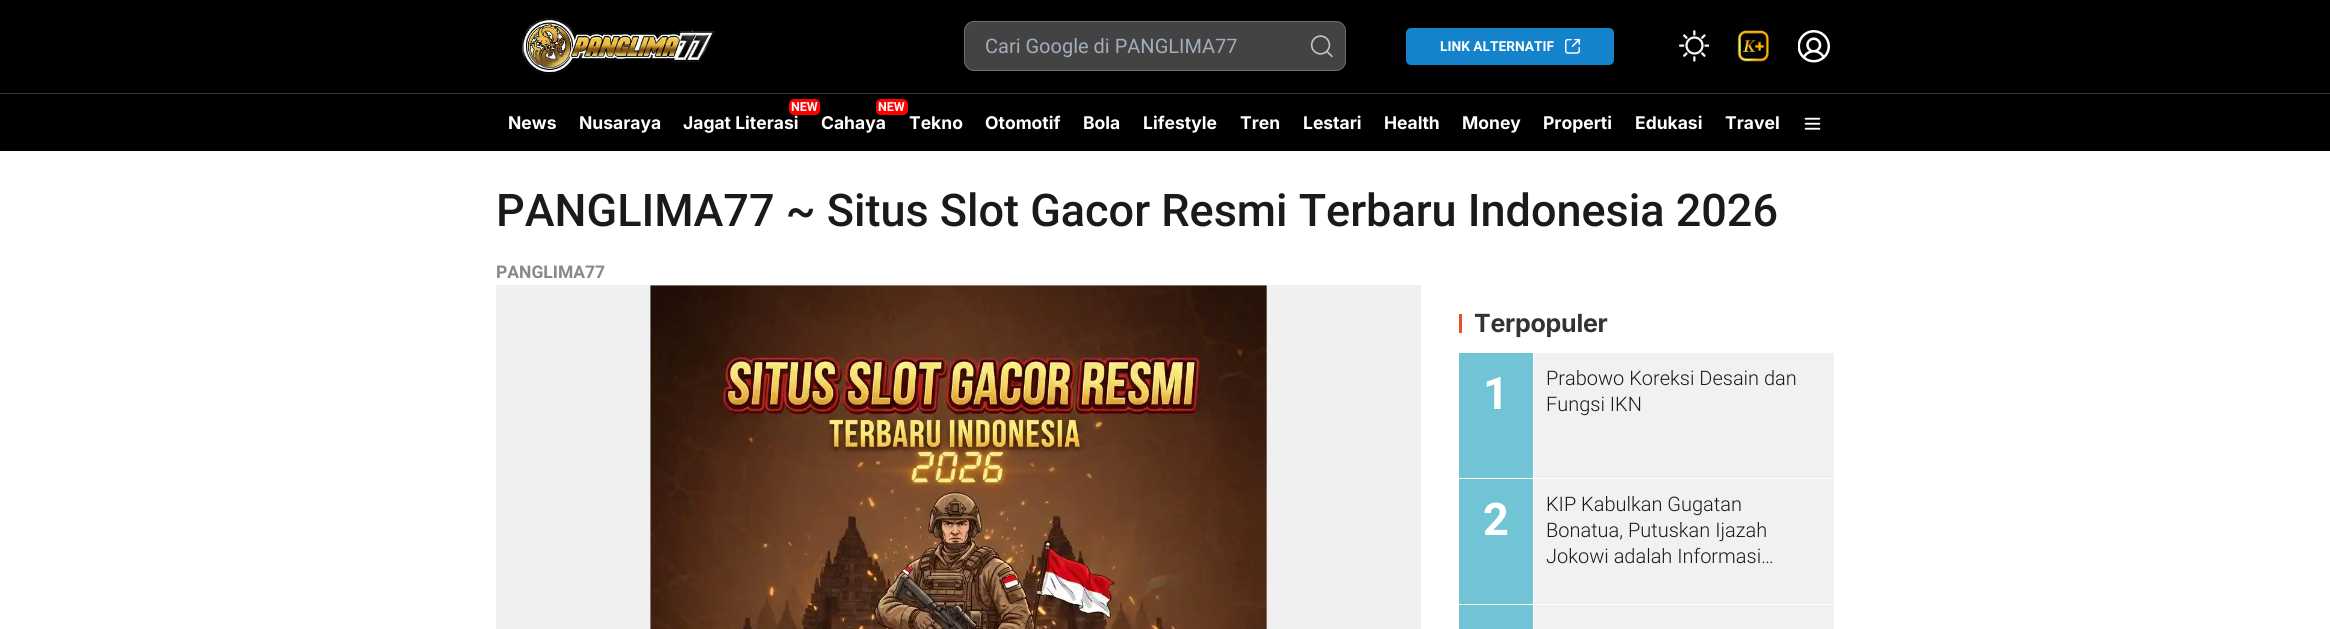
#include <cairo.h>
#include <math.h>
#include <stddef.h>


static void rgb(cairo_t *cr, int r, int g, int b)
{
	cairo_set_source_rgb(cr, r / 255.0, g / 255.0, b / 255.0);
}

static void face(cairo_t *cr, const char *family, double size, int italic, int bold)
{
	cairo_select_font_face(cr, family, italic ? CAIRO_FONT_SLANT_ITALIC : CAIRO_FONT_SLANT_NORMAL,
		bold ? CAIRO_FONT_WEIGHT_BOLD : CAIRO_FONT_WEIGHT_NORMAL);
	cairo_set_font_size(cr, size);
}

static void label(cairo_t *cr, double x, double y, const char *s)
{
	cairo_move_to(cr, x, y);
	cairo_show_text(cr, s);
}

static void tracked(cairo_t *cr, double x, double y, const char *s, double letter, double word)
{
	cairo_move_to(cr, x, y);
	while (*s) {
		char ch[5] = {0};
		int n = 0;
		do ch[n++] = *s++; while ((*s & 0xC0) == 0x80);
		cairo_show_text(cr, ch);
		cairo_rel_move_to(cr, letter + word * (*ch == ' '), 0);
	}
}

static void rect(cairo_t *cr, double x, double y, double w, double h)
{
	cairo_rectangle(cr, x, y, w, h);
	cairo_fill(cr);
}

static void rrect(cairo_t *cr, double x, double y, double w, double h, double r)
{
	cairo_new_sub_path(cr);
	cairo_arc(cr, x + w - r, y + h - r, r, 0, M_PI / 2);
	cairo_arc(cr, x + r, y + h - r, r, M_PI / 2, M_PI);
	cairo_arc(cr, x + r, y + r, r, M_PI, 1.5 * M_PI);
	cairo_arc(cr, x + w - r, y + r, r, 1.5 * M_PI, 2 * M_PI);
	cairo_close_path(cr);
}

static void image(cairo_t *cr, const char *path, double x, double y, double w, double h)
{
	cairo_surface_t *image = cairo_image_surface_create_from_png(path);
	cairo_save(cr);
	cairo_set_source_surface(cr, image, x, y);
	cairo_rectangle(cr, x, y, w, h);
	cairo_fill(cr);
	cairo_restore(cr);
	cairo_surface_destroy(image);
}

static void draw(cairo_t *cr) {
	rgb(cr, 255, 255, 255);
	cairo_paint(cr);
	rgb(cr, 0, 0, 0);
	rect(cr, 0, 0, 2330, 151);
	image(cr, "image0.png", 521, 18, 194, 57);
	rgb(cr, 67, 67, 67);
	rrect(cr, 964.5, 21.5, 381, 49, 9.5);
	cairo_fill_preserve(cr);
	rgb(cr, 108, 111, 117);
	cairo_set_line_width(cr, 1);
	cairo_stroke(cr);
	face(cr, "Roboto", 20, 0, 0);
	rgb(cr, 161, 173, 185);
	label(cr, 985, 53, "Cari Google di PANGLIMA77");
	image(cr, "image1.png", 1310, 35, 23, 23);
	rgb(cr, 21, 131, 204);
	rrect(cr, 1406, 28, 208, 37, 5);
	cairo_fill(cr);
	face(cr, "Roboto", 13.75, 0, 1);
	rgb(cr, 255, 255, 255);
	label(cr, 1440, 51, "LINK ALTERNATIF");
	image(cr, "image2.png", 1565, 39, 15, 15);
	image(cr, "image3.png", 1679, 30, 30, 32);
	image(cr, "image4.png", 1737, 30, 32, 32);
	image(cr, "image5.png", 1798, 30, 32, 33);
	rgb(cr, 56, 56, 56);
	rect(cr, 0, 93, 2330, 1);
	face(cr, "Inter", 17.5, 0, 1);
	rgb(cr, 255, 255, 255);
	label(cr, 508, 129, "News");
	label(cr, 579, 129, "Nusaraya");
	rgb(cr, 255, 0, 0);
	rrect(cr, 789, 99, 31, 16, 5);
	cairo_fill(cr);
	face(cr, "Roboto", 12.5, 0, 1);
	rgb(cr, 255, 255, 255);
	label(cr, 791, 111, "NEW");
	face(cr, "Inter", 17.5, 0, 1);
	label(cr, 683, 129, "Jagat Literasi");
	rgb(cr, 255, 0, 0);
	rrect(cr, 876, 99, 32, 16, 5);
	cairo_fill(cr);
	face(cr, "Roboto", 12.5, 0, 1);
	rgb(cr, 255, 255, 255);
	label(cr, 878, 111, "NEW");
	face(cr, "Inter", 17.5, 0, 1);
	label(cr, 821, 129, "Cahaya");
	label(cr, 909, 129, "Tekno");
	label(cr, 985, 129, "Otomotif");
	label(cr, 1083, 129, "Bola");
	label(cr, 1143, 129, "Lifestyle");
	label(cr, 1240, 129, "Tren");
	label(cr, 1303, 129, "Lestari");
	label(cr, 1384, 129, "Health");
	label(cr, 1462, 129, "Money");
	label(cr, 1543, 129, "Properti");
	label(cr, 1635, 129, "Edukasi");
	label(cr, 1725, 129, "Travel");
	image(cr, "image6.png", 1804, 117, 17, 13);
	face(cr, "Roboto Medium", 45, 0, 0);
	rgb(cr, 26, 26, 26);
	label(cr, 496, 226, "PANGLIMA77 ~ Situs Slot Gacor Resmi Terbaru Indonesia 2026");
	face(cr, "Roboto", 17.5, 0, 1);
	rgb(cr, 136, 136, 136);
	label(cr, 496, 278, "PANGLIMA77");
	rgb(cr, 240, 240, 240);
	rect(cr, 496, 285, 925, 344);
	image(cr, "image7.png", 650, 285, 617, 344);
	rgb(cr, 230, 82, 37);
	rect(cr, 1459, 314, 3, 19);
	face(cr, "Inter", 25, 0, 1);
	rgb(cr, 51, 51, 51);
	tracked(cr, 1474, 332, "Terpopuler", -0.25, 0);
	rgb(cr, 241, 241, 241);
	rect(cr, 1534, 353, 300, 125);
	rgb(cr, 113, 196, 214);
	rect(cr, 1459, 353, 74, 125);
	face(cr, "Roboto", 45, 0, 1);
	rgb(cr, 255, 255, 255);
	label(cr, 1483, 409, "1");
	face(cr, "Roboto Light", 20, 0, 0);
	rgb(cr, 26, 26, 26);
	label(cr, 1546, 385, "Prabowo Koreksi Desain dan");
	label(cr, 1546, 411, "Fungsi IKN");
	rgb(cr, 241, 241, 241);
	rect(cr, 1534, 479, 300, 125);
	rgb(cr, 113, 196, 214);
	rect(cr, 1459, 479, 74, 125);
	face(cr, "Roboto", 45, 0, 1);
	rgb(cr, 255, 255, 255);
	label(cr, 1483, 535, "2");
	face(cr, "Roboto Light", 20, 0, 0);
	rgb(cr, 26, 26, 26);
	label(cr, 1546, 511, "KIP Kabulkan Gugatan");
	label(cr, 1546, 537, "Bonatua, Putuskan Ijazah");
	label(cr, 1546, 563, "Jokowi adalah Informasi…");
	rgb(cr, 241, 241, 241);
	rect(cr, 1534, 605, 300, 24);
	rgb(cr, 113, 196, 214);
	rect(cr, 1459, 605, 74, 24);
}

int main(void) {
	cairo_surface_t *surface = cairo_image_surface_create(CAIRO_FORMAT_RGB24, 2330, 629);
	cairo_t *cr = cairo_create(surface);
	cairo_font_options_t *options = cairo_font_options_create();
	cairo_font_options_set_hint_metrics(options, CAIRO_HINT_METRICS_OFF);
	cairo_font_options_set_hint_style(options, CAIRO_HINT_STYLE_NONE);
	cairo_set_font_options(cr, options);
	cairo_set_miter_limit(cr, 4);
	draw(cr);
	cairo_surface_write_to_png(surface, "render.png");
	cairo_font_options_destroy(options);
	cairo_destroy(cr);
	cairo_surface_destroy(surface);
	return 0;
}
